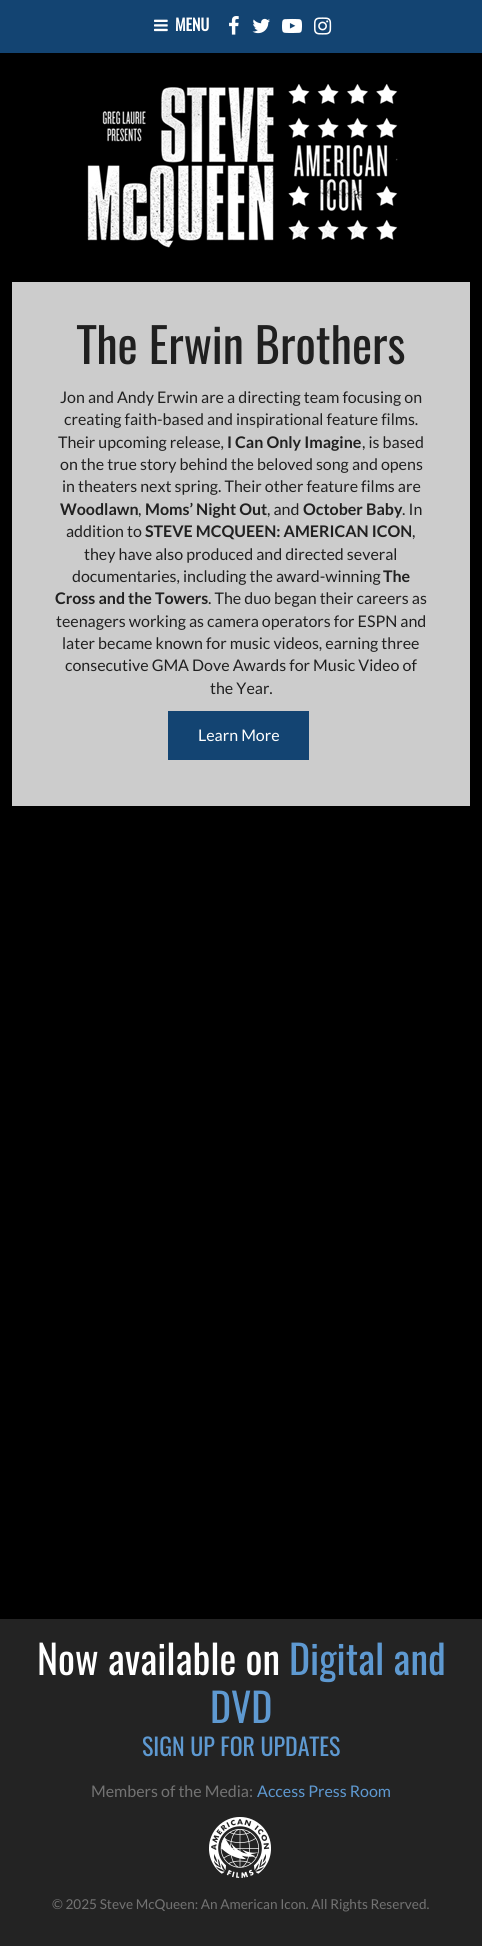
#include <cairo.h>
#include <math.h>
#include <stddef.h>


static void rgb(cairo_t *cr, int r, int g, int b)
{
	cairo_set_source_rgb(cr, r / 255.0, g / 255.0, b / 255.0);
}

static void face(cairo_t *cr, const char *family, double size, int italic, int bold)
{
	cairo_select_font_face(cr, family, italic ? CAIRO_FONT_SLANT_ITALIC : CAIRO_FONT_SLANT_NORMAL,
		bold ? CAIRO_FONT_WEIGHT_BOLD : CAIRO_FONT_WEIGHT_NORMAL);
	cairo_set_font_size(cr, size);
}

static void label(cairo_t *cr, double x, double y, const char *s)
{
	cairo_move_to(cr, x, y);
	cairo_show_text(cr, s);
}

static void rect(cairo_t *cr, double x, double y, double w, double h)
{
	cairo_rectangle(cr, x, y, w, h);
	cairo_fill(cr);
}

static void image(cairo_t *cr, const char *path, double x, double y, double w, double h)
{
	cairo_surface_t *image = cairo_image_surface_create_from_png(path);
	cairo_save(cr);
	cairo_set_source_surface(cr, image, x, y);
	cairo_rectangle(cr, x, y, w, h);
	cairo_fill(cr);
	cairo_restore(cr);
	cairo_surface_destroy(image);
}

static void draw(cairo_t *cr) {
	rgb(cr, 0, 0, 0);
	cairo_paint(cr);
	rgb(cr, 19, 68, 114);
	rect(cr, 0, 0, 482, 53);
	image(cr, "image0.png", 154, 19, 14, 13);
	face(cr, "Oswald", 16, 0, 1);
	rgb(cr, 255, 255, 255);
	label(cr, 175, 31, "MENU");
	image(cr, "image1.png", 229, 16, 10, 19);
	image(cr, "image2.png", 252, 18, 18, 16);
	image(cr, "image3.png", 282, 18, 20, 15);
	image(cr, "image4.png", 314, 17, 18, 18);
	image(cr, "image5.png", 87, 84, 311, 164);
	rgb(cr, 204, 204, 204);
	rect(cr, 12, 282, 458, 524);
	face(cr, "Oswald", 48, 0, 0);
	rgb(cr, 32, 32, 32);
	label(cr, 77, 364, "The Erwin Brothers");
	face(cr, "Lato", 16, 0, 0);
	label(cr, 60, 403, "Jon and Andy Erwin are a directing team focusing on");
	label(cr, 64, 425, "creating faith-based and inspirational feature films.");
	label(cr, 58, 448, "Their upcoming release,");
	face(cr, "Lato", 16, 0, 1);
	label(cr, 227, 448, "I Can Only Imagine");
	face(cr, "Lato", 16, 0, 0);
	label(cr, 362, 448, ", is based");
	label(cr, 60, 470, "on the true story behind the beloved song and opens");
	label(cr, 62, 492, "in theaters next spring. Their other feature films are");
	face(cr, "Lato", 16, 0, 1);
	label(cr, 60, 515, "Woodlawn");
	face(cr, "Lato", 16, 0, 0);
	label(cr, 138, 515, ",");
	face(cr, "Lato", 16, 0, 1);
	label(cr, 145, 515, "Moms’ Night Out");
	face(cr, "Lato", 16, 0, 0);
	label(cr, 267, 515, ", and");
	face(cr, "Lato", 16, 0, 1);
	label(cr, 303, 515, "October Baby");
	face(cr, "Lato", 16, 0, 0);
	label(cr, 402, 515, ". In");
	label(cr, 66, 537, "addition to");
	face(cr, "Lato", 16, 0, 1);
	label(cr, 145, 537, "STEVE MCQUEEN: AMERICAN ICON");
	face(cr, "Lato", 16, 0, 0);
	label(cr, 412, 537, ",");
	label(cr, 84, 560, "they have also produced and directed several");
	label(cr, 72, 582, "documentaries, including the award-winning");
	face(cr, "Lato", 16, 0, 1);
	label(cr, 383, 582, "The");
	label(cr, 55, 604, "Cross and the Towers");
	face(cr, "Lato", 16, 0, 0);
	label(cr, 208, 604, ". The duo began their careers as");
	label(cr, 56, 627, "teenagers working as camera operators for ESPN and");
	label(cr, 62, 649, "later became known for music videos, earning three");
	label(cr, 65, 671, "consecutive GMA Dove Awards for Music Video of");
	label(cr, 210, 694, "the Year.");
	rgb(cr, 19, 68, 114);
	rect(cr, 168, 711, 141, 49);
	rgb(cr, 255, 255, 255);
	label(cr, 198, 741, "Learn More");
	rgb(cr, 35, 35, 35);
	rect(cr, 0, 1619, 482, 327);
	face(cr, "Oswald", 40, 0, 0);
	rgb(cr, 255, 255, 255);
	label(cr, 37, 1675, "Now available on");
	rgb(cr, 94, 153, 209);
	label(cr, 289, 1675, "Digital and");
	label(cr, 210, 1723, "DVD");
	face(cr, "Oswald", 24, 0, 0);
	label(cr, 142, 1756, "SIGN UP FOR UPDATES");
	face(cr, "Lato", 16, 0, 0);
	rgb(cr, 115, 115, 115);
	label(cr, 91, 1797, "Members of the Media:");
	rgb(cr, 94, 153, 209);
	label(cr, 257, 1797, "Access Press Room");
	image(cr, "image6.png", 209, 1817, 62, 61);
	face(cr, "Lato", 13.6, 0, 0);
	rgb(cr, 115, 115, 115);
	label(cr, 52, 1909, "© 2025 Steve McQueen: An American Icon. All Rights Reserved.");
}

int main(void) {
	cairo_surface_t *surface = cairo_image_surface_create(CAIRO_FORMAT_RGB24, 482, 1946);
	cairo_t *cr = cairo_create(surface);
	cairo_font_options_t *options = cairo_font_options_create();
	cairo_font_options_set_hint_metrics(options, CAIRO_HINT_METRICS_OFF);
	cairo_font_options_set_hint_style(options, CAIRO_HINT_STYLE_NONE);
	cairo_set_font_options(cr, options);
	cairo_set_miter_limit(cr, 4);
	draw(cr);
	cairo_surface_write_to_png(surface, "render.png");
	cairo_font_options_destroy(options);
	cairo_destroy(cr);
	cairo_surface_destroy(surface);
	return 0;
}
